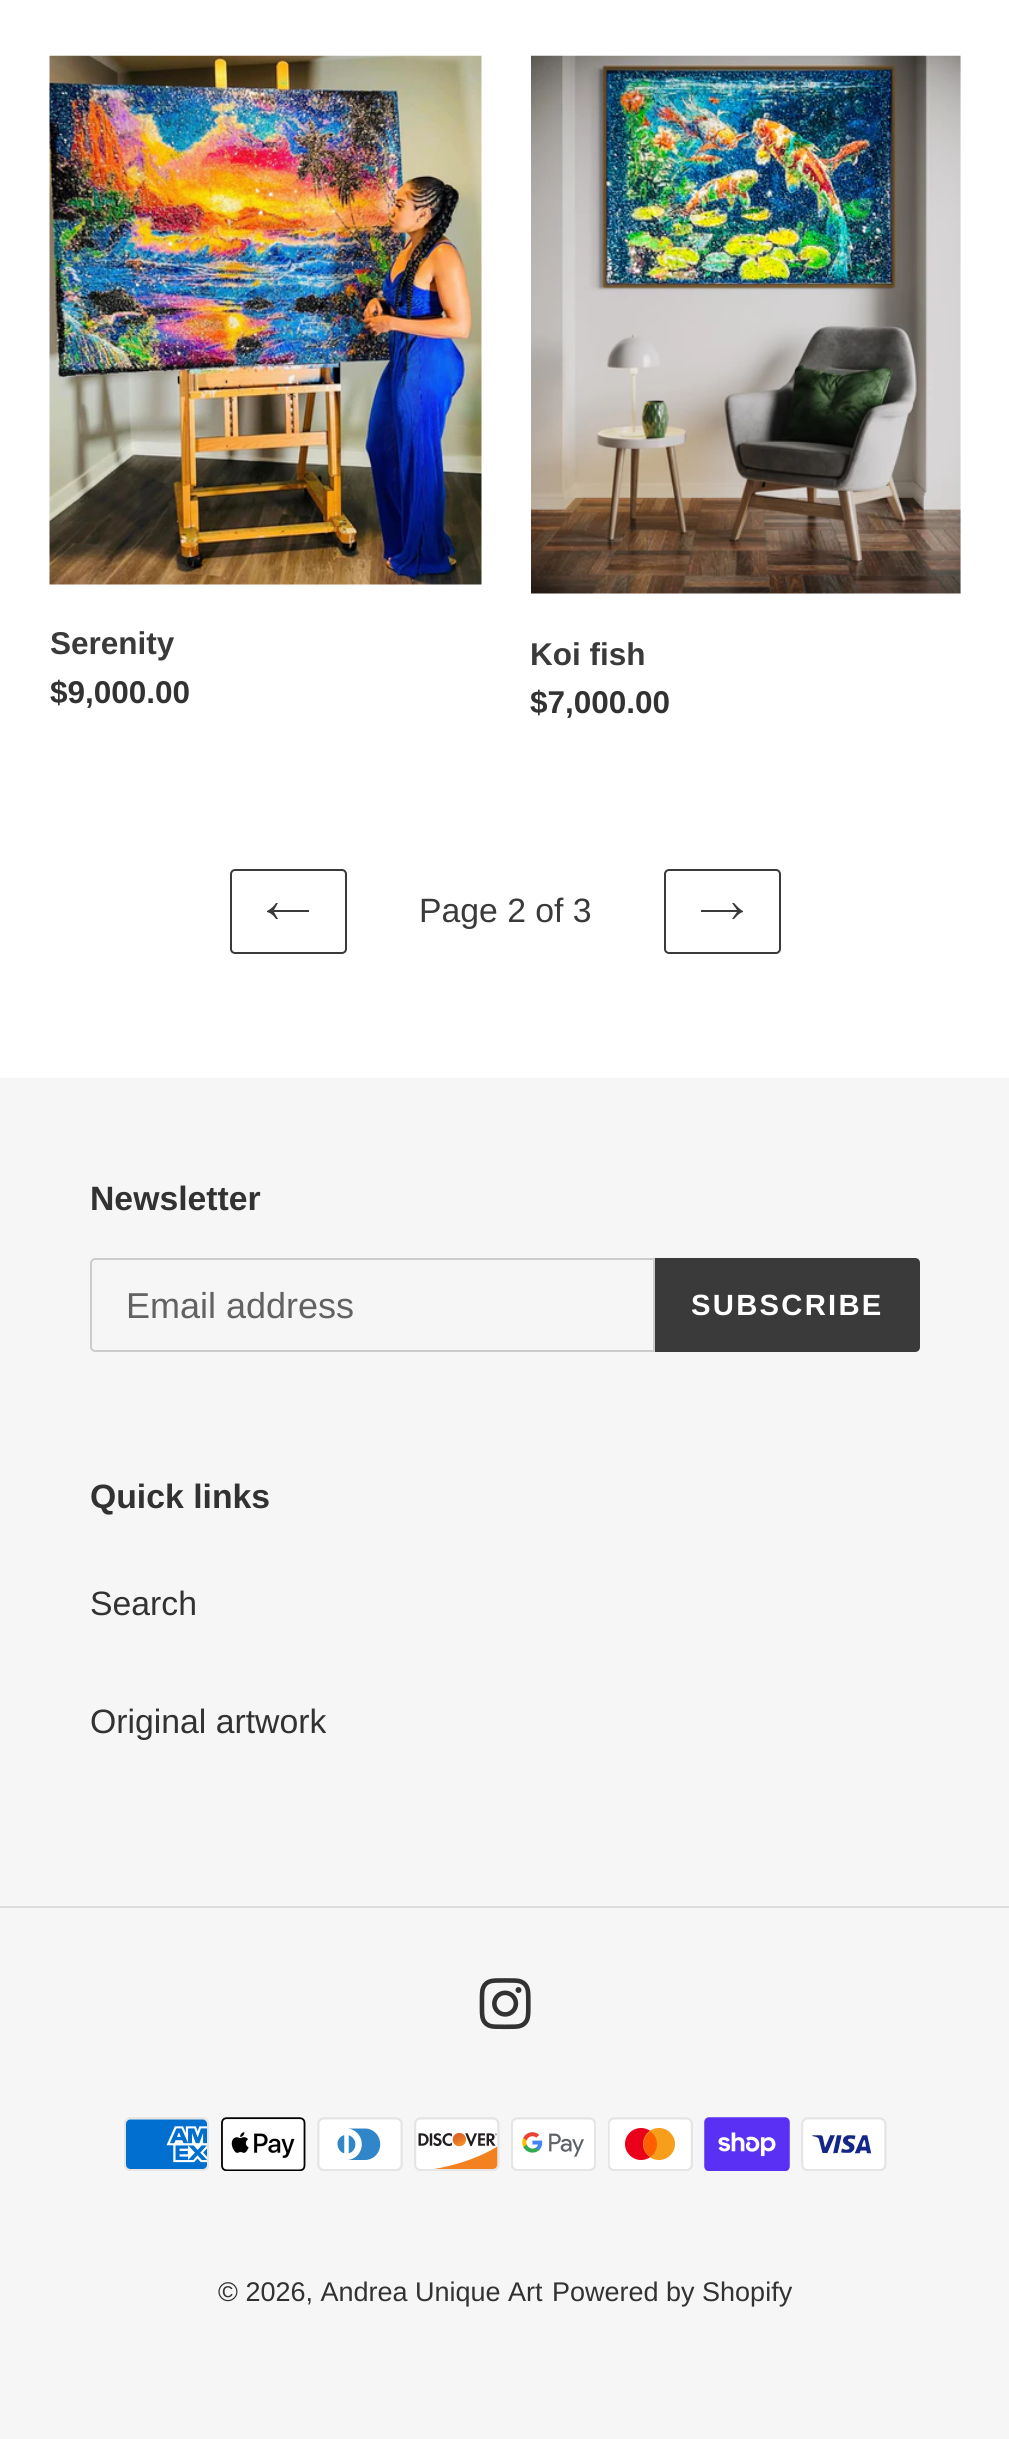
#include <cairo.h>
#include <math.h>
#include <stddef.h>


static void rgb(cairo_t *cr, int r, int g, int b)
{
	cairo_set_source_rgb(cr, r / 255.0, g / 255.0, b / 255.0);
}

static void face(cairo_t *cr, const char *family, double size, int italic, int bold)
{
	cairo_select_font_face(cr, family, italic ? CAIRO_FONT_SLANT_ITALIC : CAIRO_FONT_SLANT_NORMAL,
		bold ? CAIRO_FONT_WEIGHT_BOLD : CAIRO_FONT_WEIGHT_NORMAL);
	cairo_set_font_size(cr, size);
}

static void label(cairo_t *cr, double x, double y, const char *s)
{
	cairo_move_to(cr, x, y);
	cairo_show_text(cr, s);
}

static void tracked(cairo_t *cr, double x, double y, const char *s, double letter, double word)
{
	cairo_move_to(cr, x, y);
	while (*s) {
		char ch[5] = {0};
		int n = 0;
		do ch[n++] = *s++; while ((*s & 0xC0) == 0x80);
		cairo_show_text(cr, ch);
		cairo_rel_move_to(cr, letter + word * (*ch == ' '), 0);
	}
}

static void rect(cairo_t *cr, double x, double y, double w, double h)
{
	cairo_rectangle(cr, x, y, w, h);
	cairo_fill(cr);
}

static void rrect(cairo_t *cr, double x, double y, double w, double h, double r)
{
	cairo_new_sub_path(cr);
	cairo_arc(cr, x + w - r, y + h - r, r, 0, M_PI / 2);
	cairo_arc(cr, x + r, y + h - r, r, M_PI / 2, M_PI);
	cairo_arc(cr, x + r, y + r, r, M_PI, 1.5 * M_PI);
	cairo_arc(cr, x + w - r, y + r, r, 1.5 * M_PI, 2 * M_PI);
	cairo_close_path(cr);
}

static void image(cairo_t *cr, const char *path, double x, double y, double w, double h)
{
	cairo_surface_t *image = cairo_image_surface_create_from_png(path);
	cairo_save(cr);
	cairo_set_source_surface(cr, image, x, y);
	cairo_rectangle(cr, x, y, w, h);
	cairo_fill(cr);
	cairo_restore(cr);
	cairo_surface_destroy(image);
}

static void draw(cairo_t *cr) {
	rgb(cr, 255, 255, 255);
	cairo_paint(cr);
	image(cr, "image0.png", 49, 55, 433, 530);
	face(cr, "Liberation Sans", 31.5, 0, 1);
	rgb(cr, 58, 58, 58);
	label(cr, 50, 654, "Serenity");
	rgb(cr, 51, 50, 50);
	label(cr, 50, 703, "$9,000.00");
	image(cr, "image1.png", 531, 55, 430, 539);
	rgb(cr, 58, 58, 58);
	label(cr, 530, 665, "Koi fish");
	rgb(cr, 51, 50, 50);
	label(cr, 530, 713, "$7,000.00");
	rrect(cr, 231, 870, 115, 83, 4);
	rgb(cr, 58, 58, 58);
	cairo_stroke(cr);
	cairo_set_fill_rule(cr, CAIRO_FILL_RULE_EVEN_ODD);
	cairo_new_path(cr);
	cairo_move_to(cr, 276, 919);
	cairo_curve_to(cr, 274, 916, 271, 913, 267, 912);
	cairo_line_to(cr, 267, 911);
	cairo_curve_to(cr, 271, 909, 274, 906, 276, 903);
	cairo_line_to(cr, 278, 903);
	cairo_line_to(cr, 274, 910);
	cairo_line_to(cr, 309, 910);
	cairo_line_to(cr, 309, 912);
	cairo_line_to(cr, 274, 912);
	cairo_line_to(cr, 278, 919);
	cairo_close_path(cr);
	cairo_fill(cr);
	face(cr, "Liberation Sans", 33.75, 0, 0);
	label(cr, 419, 922, "Page 2 of 3");
	rrect(cr, 665, 870, 115, 83, 4);
	cairo_stroke(cr);
	cairo_new_path(cr);
	cairo_move_to(cr, 734, 903);
	cairo_curve_to(cr, 737, 906, 739, 909, 743, 911);
	cairo_line_to(cr, 743, 912);
	cairo_curve_to(cr, 739, 913, 737, 916, 734, 919);
	cairo_line_to(cr, 732, 919);
	cairo_line_to(cr, 737, 912);
	cairo_line_to(cr, 701, 912);
	cairo_line_to(cr, 701, 910);
	cairo_line_to(cr, 737, 910);
	cairo_line_to(cr, 732, 903);
	cairo_close_path(cr);
	cairo_fill(cr);
	rgb(cr, 246, 246, 246);
	rect(cr, 0, 1078, 1009, 1361);
	face(cr, "Liberation Sans", 33.75, 0, 1);
	rgb(cr, 51, 50, 50);
	label(cr, 90, 1210, "Newsletter");
	cairo_new_path(cr);
	cairo_move_to(cr, 95, 1259);
	cairo_line_to(cr, 654, 1259);
	cairo_line_to(cr, 654, 1351);
	cairo_line_to(cr, 95, 1351);
	cairo_curve_to(cr, 93, 1351, 91, 1349, 91, 1347);
	cairo_line_to(cr, 91, 1263);
	cairo_curve_to(cr, 91, 1261, 93, 1259, 95, 1259);
	cairo_close_path(cr);
	rgb(cr, 204, 204, 204);
	cairo_stroke(cr);
	face(cr, "Liberation Sans", 36, 0, 0);
	rgb(cr, 98, 98, 98);
	label(cr, 126, 1318, "Email address");
	rgb(cr, 58, 58, 58);
	cairo_new_path(cr);
	cairo_move_to(cr, 655, 1258);
	cairo_line_to(cr, 915, 1258);
	cairo_curve_to(cr, 918, 1258, 920, 1260, 920, 1263);
	cairo_line_to(cr, 920, 1347);
	cairo_curve_to(cr, 920, 1350, 918, 1352, 915, 1352);
	cairo_line_to(cr, 655, 1352);
	cairo_close_path(cr);
	cairo_fill(cr);
	face(cr, "Liberation Sans", 29.25, 0, 1);
	rgb(cr, 255, 255, 255);
	tracked(cr, 691, 1315, "SUBSCRIBE", 2.25, 0);
	face(cr, "Liberation Sans", 33.75, 0, 1);
	rgb(cr, 51, 50, 50);
	label(cr, 90, 1508, "Quick links");
	face(cr, "Liberation Sans", 33.75, 0, 0);
	label(cr, 90, 1615, "Search");
	label(cr, 90, 1733, "Original artwork");
	rgb(cr, 221, 221, 221);
	rect(cr, 0, 1906, 1009, 2);
	image(cr, "image2.png", 479, 1978, 52, 52);
	image(cr, "image3.png", 124, 2117, 85, 54);
	image(cr, "image4.png", 221, 2117, 85, 54);
	image(cr, "image5.png", 317, 2117, 86, 54);
	image(cr, "image6.png", 414, 2117, 86, 54);
	image(cr, "image7.png", 511, 2117, 85, 54);
	image(cr, "image8.png", 608, 2117, 85, 54);
	image(cr, "image9.png", 704, 2117, 86, 54);
	image(cr, "image10.png", 801, 2117, 86, 54);
	face(cr, "Liberation Sans", 27, 0, 0);
	rgb(cr, 51, 50, 50);
	label(cr, 218, 2301, "© 2026, Andrea Unique Art");
	label(cr, 552, 2301, "Powered by Shopify");
}

int main(void) {
	cairo_surface_t *surface = cairo_image_surface_create(CAIRO_FORMAT_RGB24, 1009, 2439);
	cairo_t *cr = cairo_create(surface);
	cairo_font_options_t *options = cairo_font_options_create();
	cairo_font_options_set_hint_metrics(options, CAIRO_HINT_METRICS_OFF);
	cairo_font_options_set_hint_style(options, CAIRO_HINT_STYLE_NONE);
	cairo_set_font_options(cr, options);
	cairo_set_miter_limit(cr, 4);
	draw(cr);
	cairo_surface_write_to_png(surface, "render.png");
	cairo_font_options_destroy(options);
	cairo_destroy(cr);
	cairo_surface_destroy(surface);
	return 0;
}
